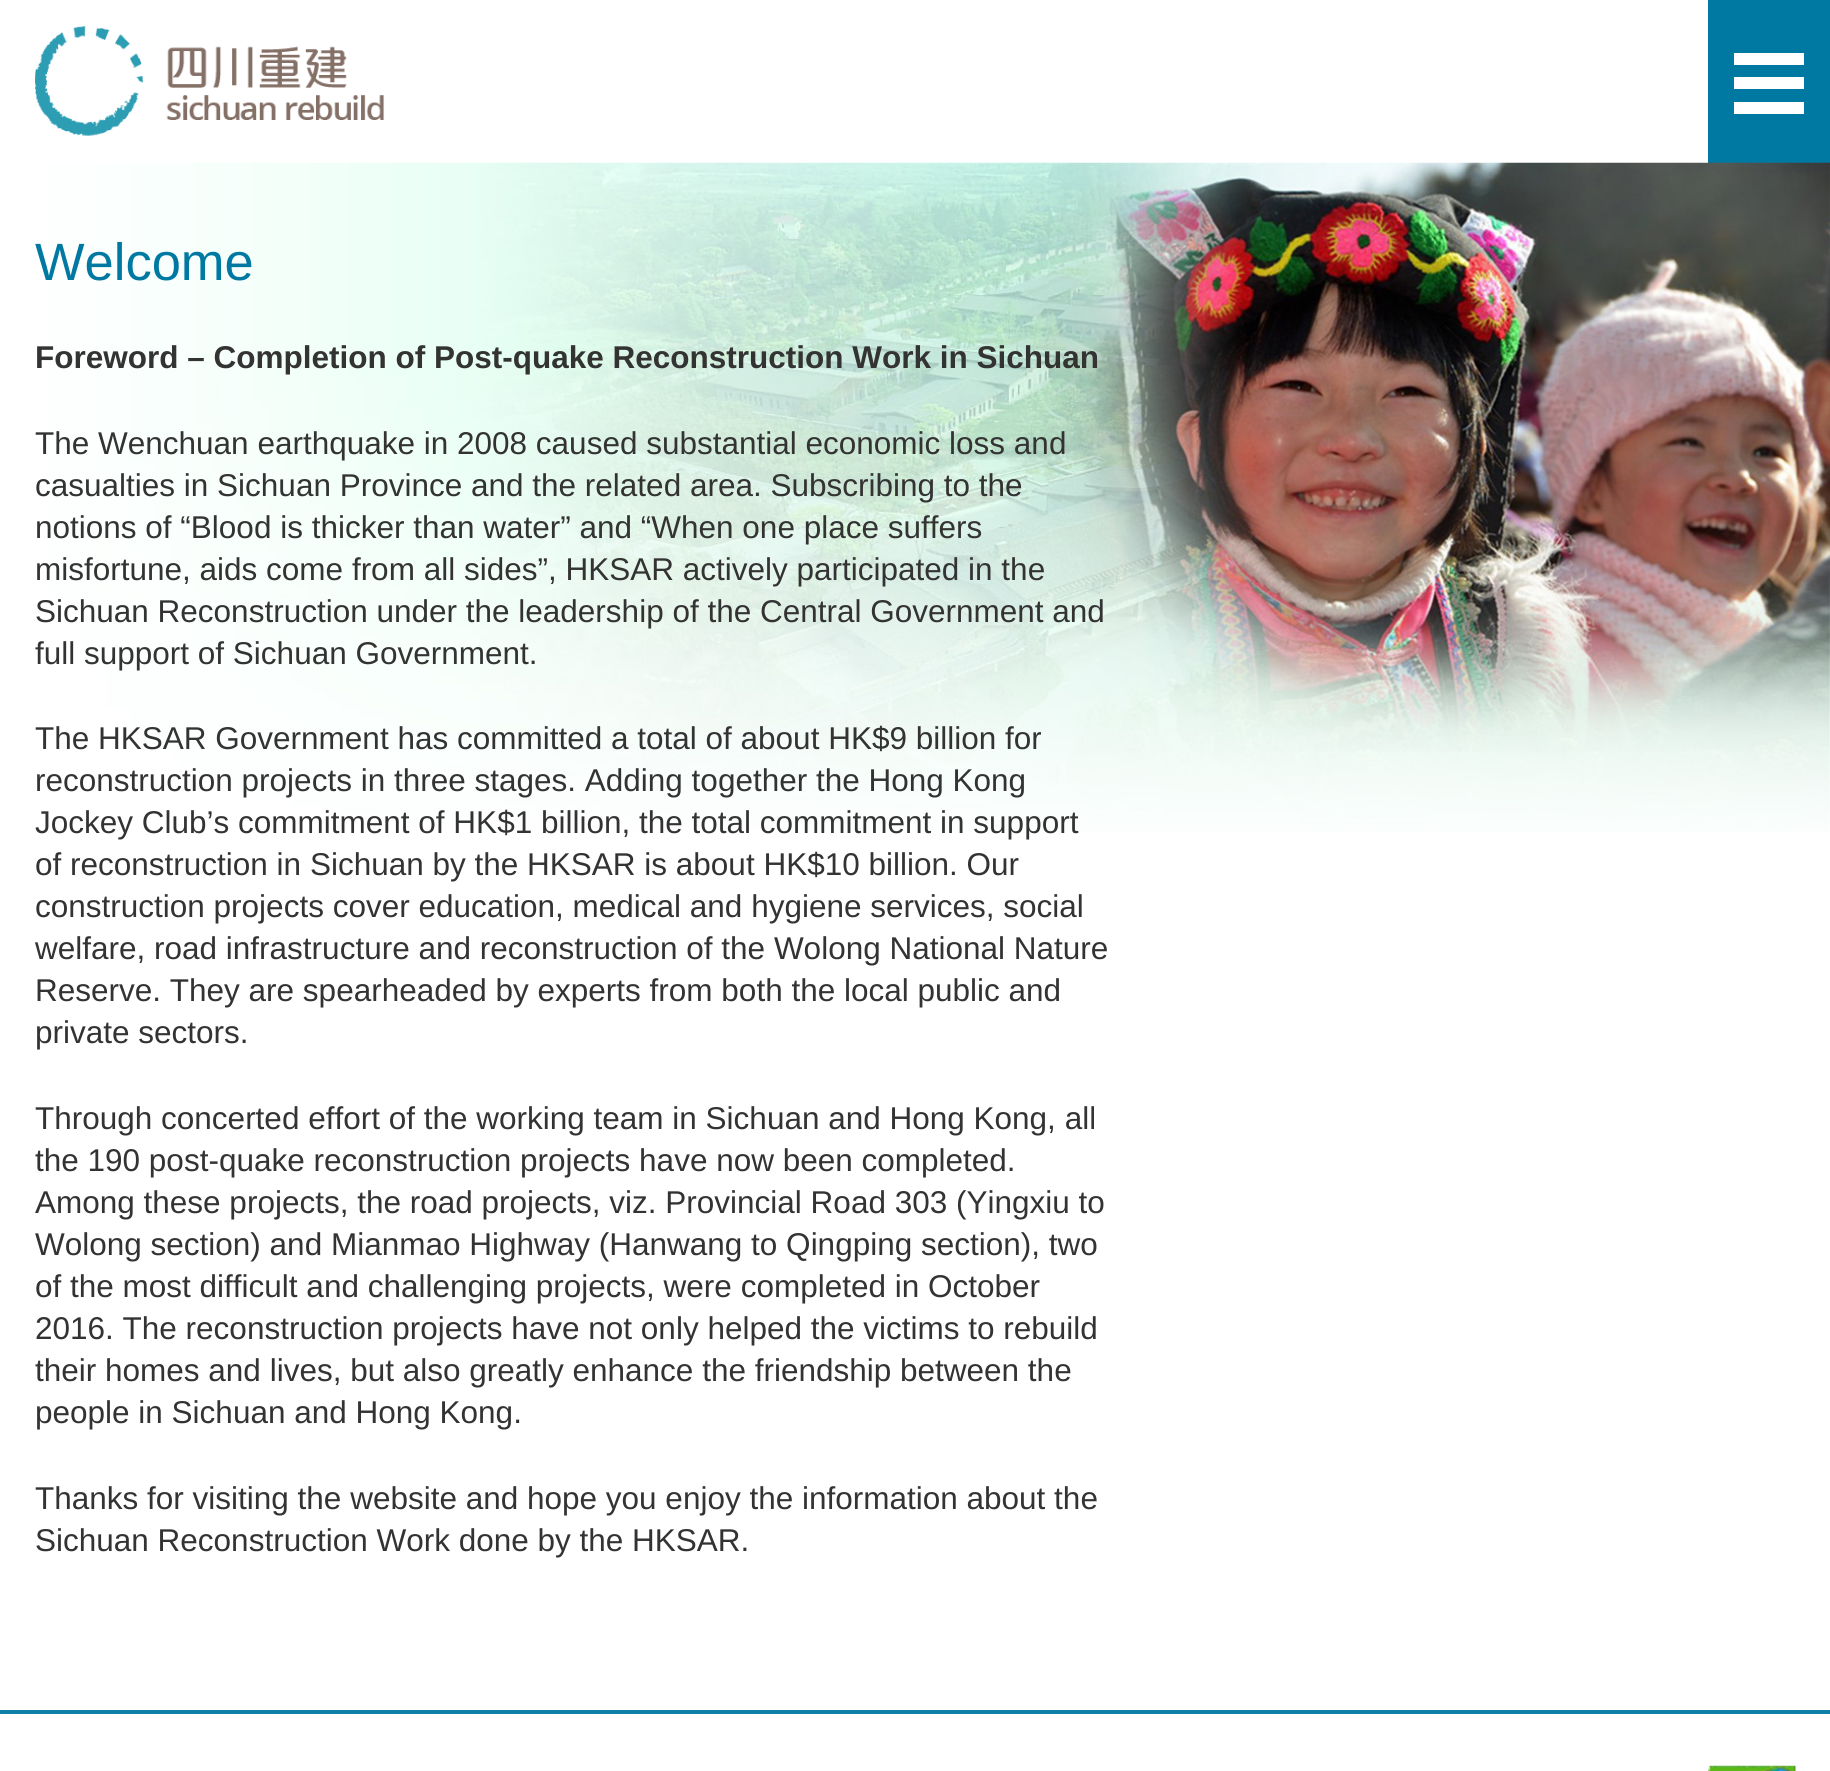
#include <cairo.h>
#include <math.h>
#include <stddef.h>


static void rgb(cairo_t *cr, int r, int g, int b)
{
	cairo_set_source_rgb(cr, r / 255.0, g / 255.0, b / 255.0);
}

static void face(cairo_t *cr, const char *family, double size, int italic, int bold)
{
	cairo_select_font_face(cr, family, italic ? CAIRO_FONT_SLANT_ITALIC : CAIRO_FONT_SLANT_NORMAL,
		bold ? CAIRO_FONT_WEIGHT_BOLD : CAIRO_FONT_WEIGHT_NORMAL);
	cairo_set_font_size(cr, size);
}

static void label(cairo_t *cr, double x, double y, const char *s)
{
	cairo_move_to(cr, x, y);
	cairo_show_text(cr, s);
}

static void rect(cairo_t *cr, double x, double y, double w, double h)
{
	cairo_rectangle(cr, x, y, w, h);
	cairo_fill(cr);
}

static void image(cairo_t *cr, const char *path, double x, double y, double w, double h)
{
	cairo_surface_t *image = cairo_image_surface_create_from_png(path);
	cairo_save(cr);
	cairo_set_source_surface(cr, image, x, y);
	cairo_rectangle(cr, x, y, w, h);
	cairo_fill(cr);
	cairo_restore(cr);
	cairo_surface_destroy(image);
}

static void draw(cairo_t *cr) {
	rgb(cr, 255, 255, 255);
	cairo_paint(cr);
	image(cr, "image0.png", 35, 26, 350, 110);
	rgb(cr, 0, 121, 162);
	rect(cr, 1708, 0, 122, 163);
	rgb(cr, 255, 255, 255);
	rect(cr, 1734, 77, 70, 12);
	rect(cr, 1734, 53, 70, 12);
	rect(cr, 1734, 102, 70, 12);
	rgb(cr, 14, 128, 167);
	rect(cr, 0, 1710, 1830, 4);
	image(cr, "image1.png", 0, 162, 1830, 670);
	face(cr, "Liberation Sans", 52.5, 0, 0);
	rgb(cr, 0, 121, 162);
	label(cr, 35, 280, "Welcome");
	face(cr, "Liberation Sans", 31.5, 0, 1);
	rgb(cr, 51, 51, 51);
	label(cr, 35, 368, "Foreword – Completion of Post-quake Reconstruction Work in Sichuan");
	face(cr, "Liberation Sans", 31.5, 0, 0);
	label(cr, 35, 454, "The Wenchuan earthquake in 2008 caused substantial economic loss and");
	label(cr, 35, 496, "casualties in Sichuan Province and the related area. Subscribing to the");
	label(cr, 35, 538, "notions of “Blood is thicker than water” and “When one place suffers");
	label(cr, 35, 580, "misfortune, aids come from all sides”, HKSAR actively participated in the");
	label(cr, 35, 622, "Sichuan Reconstruction under the leadership of the Central Government and");
	label(cr, 35, 664, "full support of Sichuan Government.");
	label(cr, 35, 749, "The HKSAR Government has committed a total of about HK$9 billion for");
	label(cr, 35, 791, "reconstruction projects in three stages. Adding together the Hong Kong");
	label(cr, 35, 833, "Jockey Club’s commitment of HK$1 billion, the total commitment in support");
	label(cr, 35, 875, "of reconstruction in Sichuan by the HKSAR is about HK$10 billion. Our");
	label(cr, 35, 917, "construction projects cover education, medical and hygiene services, social");
	label(cr, 35, 959, "welfare, road infrastructure and reconstruction of the Wolong National Nature");
	label(cr, 35, 1001, "Reserve. They are spearheaded by experts from both the local public and");
	label(cr, 35, 1043, "private sectors.");
	label(cr, 35, 1129, "Through concerted effort of the working team in Sichuan and Hong Kong, all");
	label(cr, 35, 1171, "the 190 post-quake reconstruction projects have now been completed.");
	label(cr, 35, 1213, "Among these projects, the road projects, viz. Provincial Road 303 (Yingxiu to");
	label(cr, 35, 1255, "Wolong section) and Mianmao Highway (Hanwang to Qingping section), two");
	label(cr, 35, 1297, "of the most difficult and challenging projects, were completed in October");
	label(cr, 35, 1339, "2016. The reconstruction projects have not only helped the victims to rebuild");
	label(cr, 35, 1381, "their homes and lives, but also greatly enhance the friendship between the");
	label(cr, 35, 1423, "people in Sichuan and Hong Kong.");
	label(cr, 35, 1509, "Thanks for visiting the website and hope you enjoy the information about the");
	label(cr, 35, 1551, "Sichuan Reconstruction Work done by the HKSAR.");
	image(cr, "image2.png", 1708, 1765, 88, 6);
}

int main(void) {
	cairo_surface_t *surface = cairo_image_surface_create(CAIRO_FORMAT_RGB24, 1830, 1771);
	cairo_t *cr = cairo_create(surface);
	cairo_font_options_t *options = cairo_font_options_create();
	cairo_font_options_set_hint_metrics(options, CAIRO_HINT_METRICS_OFF);
	cairo_font_options_set_hint_style(options, CAIRO_HINT_STYLE_NONE);
	cairo_set_font_options(cr, options);
	cairo_set_miter_limit(cr, 4);
	draw(cr);
	cairo_surface_write_to_png(surface, "render.png");
	cairo_font_options_destroy(options);
	cairo_destroy(cr);
	cairo_surface_destroy(surface);
	return 0;
}
